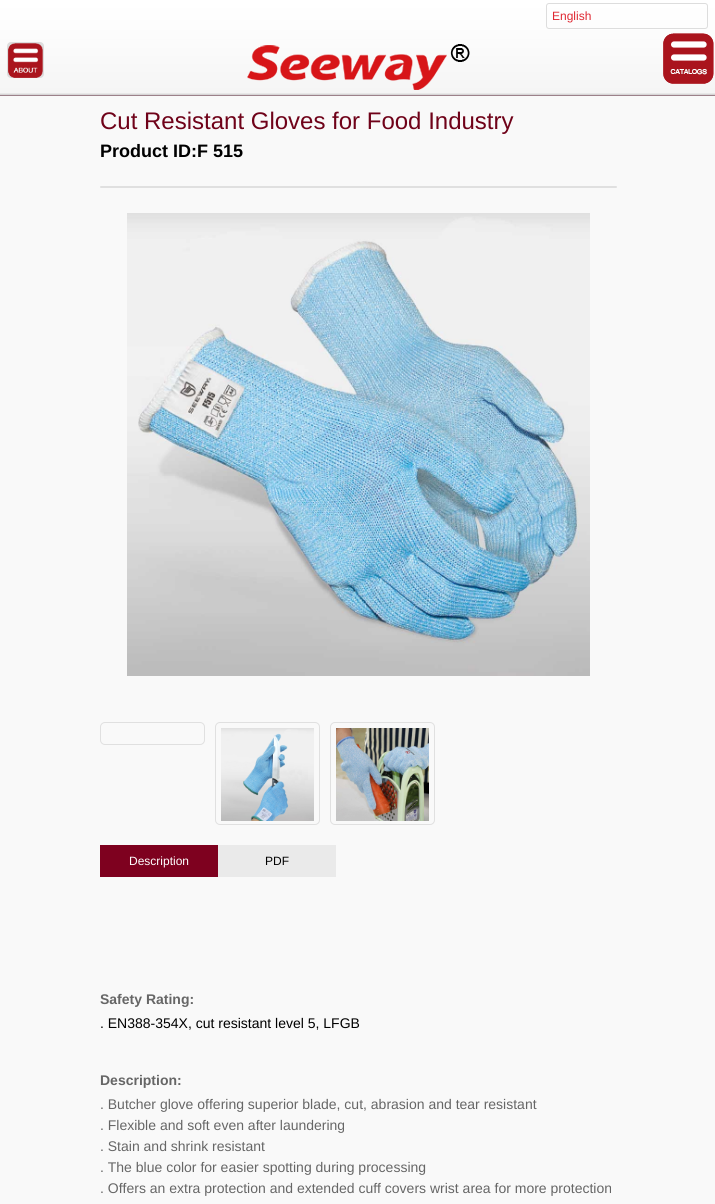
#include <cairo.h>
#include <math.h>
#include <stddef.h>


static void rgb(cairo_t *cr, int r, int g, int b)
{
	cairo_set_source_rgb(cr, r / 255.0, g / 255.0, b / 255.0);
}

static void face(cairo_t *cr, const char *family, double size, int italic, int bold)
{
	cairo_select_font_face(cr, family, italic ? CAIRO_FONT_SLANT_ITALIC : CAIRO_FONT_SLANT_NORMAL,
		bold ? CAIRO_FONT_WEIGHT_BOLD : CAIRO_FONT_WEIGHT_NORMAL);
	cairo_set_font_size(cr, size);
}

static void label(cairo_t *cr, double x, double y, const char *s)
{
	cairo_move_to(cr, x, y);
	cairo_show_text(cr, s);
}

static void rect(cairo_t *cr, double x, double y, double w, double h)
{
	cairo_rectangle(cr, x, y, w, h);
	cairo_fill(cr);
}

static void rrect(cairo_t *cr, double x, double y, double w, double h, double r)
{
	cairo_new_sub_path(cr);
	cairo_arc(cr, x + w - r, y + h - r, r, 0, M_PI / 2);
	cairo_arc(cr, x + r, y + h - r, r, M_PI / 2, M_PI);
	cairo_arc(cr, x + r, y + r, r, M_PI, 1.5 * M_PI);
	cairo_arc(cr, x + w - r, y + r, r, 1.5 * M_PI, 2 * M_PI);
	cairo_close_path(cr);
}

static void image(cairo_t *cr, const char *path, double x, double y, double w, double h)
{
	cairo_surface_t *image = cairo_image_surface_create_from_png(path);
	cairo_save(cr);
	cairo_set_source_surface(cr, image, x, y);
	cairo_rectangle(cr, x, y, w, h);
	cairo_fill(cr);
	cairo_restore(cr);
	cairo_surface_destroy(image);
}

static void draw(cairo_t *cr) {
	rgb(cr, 249, 249, 249);
	cairo_paint(cr);
	image(cr, "image0.png", 0, 0, 715, 96);
	rrect(cr, 546.5, 3.5, 161, 25, 2.5);
	rgb(cr, 221, 221, 221);
	cairo_set_line_width(cr, 1);
	cairo_stroke(cr);
	face(cr, "Liberation Sans", 12, 0, 0);
	rgb(cr, 223, 39, 49);
	label(cr, 552, 20, "English");
	rgb(cr, 221, 221, 221);
	rrect(cr, 7, 42, 37, 36, 4);
	cairo_fill(cr);
	image(cr, "image1.png", 8, 43, 35, 35);
	image(cr, "image2.png", 247, 44, 223, 46);
	image(cr, "image3.png", 663, 33, 51, 51);
	face(cr, "Liberation Sans", 24, 0, 0);
	rgb(cr, 111, 2, 25);
	label(cr, 100, 129, "Cut Resistant Gloves for Food Industry");
	face(cr, "Liberation Sans", 18, 0, 1);
	rgb(cr, 0, 0, 0);
	label(cr, 100, 157, "Product ID:F 515");
	rgb(cr, 224, 224, 224);
	rrect(cr, 100, 186, 517, 2, 1);
	cairo_fill(cr);
	image(cr, "image4.png", 127, 213, 463, 463);
	rrect(cr, 100.5, 722.5, 104, 22, 4.5);
	cairo_stroke(cr);
	rrect(cr, 215.5, 722.5, 104, 102, 4.5);
	cairo_stroke(cr);
	image(cr, "image5.png", 221, 728, 93, 93);
	rrect(cr, 330.5, 722.5, 104, 102, 4.5);
	cairo_stroke(cr);
	image(cr, "image6.png", 336, 728, 93, 93);
	rgb(cr, 126, 1, 31);
	rect(cr, 100, 845, 118, 32);
	face(cr, "Liberation Sans", 12, 0, 0);
	rgb(cr, 255, 255, 255);
	label(cr, 129, 865, "Description");
	rgb(cr, 234, 234, 234);
	rect(cr, 218, 845, 118, 32);
	rgb(cr, 0, 0, 0);
	label(cr, 265, 865, "PDF");
	face(cr, "Liberation Sans", 14, 0, 1);
	rgb(cr, 102, 102, 102);
	label(cr, 100, 1004, "Safety Rating:");
	face(cr, "Liberation Sans", 14, 0, 0);
	rgb(cr, 0, 0, 0);
	label(cr, 100, 1028, ". EN388-354X, cut resistant level 5, LFGB");
	face(cr, "Liberation Sans", 14, 0, 1);
	rgb(cr, 102, 102, 102);
	label(cr, 100, 1085, "Description:");
	face(cr, "Liberation Sans", 14, 0, 0);
	label(cr, 100, 1109, ". Butcher glove offering superior blade, cut, abrasion and tear resistant");
	label(cr, 100, 1130, ". Flexible and soft even after laundering");
	label(cr, 100, 1151, ". Stain and shrink resistant");
	label(cr, 100, 1172, ". The blue color for easier spotting during processing");
	label(cr, 100, 1193, ". Offers an extra protection and extended cuff covers wrist area for more protection");
}

int main(void) {
	cairo_surface_t *surface = cairo_image_surface_create(CAIRO_FORMAT_RGB24, 715, 1204);
	cairo_t *cr = cairo_create(surface);
	cairo_font_options_t *options = cairo_font_options_create();
	cairo_font_options_set_hint_metrics(options, CAIRO_HINT_METRICS_OFF);
	cairo_font_options_set_hint_style(options, CAIRO_HINT_STYLE_NONE);
	cairo_set_font_options(cr, options);
	cairo_set_miter_limit(cr, 4);
	draw(cr);
	cairo_surface_write_to_png(surface, "render.png");
	cairo_font_options_destroy(options);
	cairo_destroy(cr);
	cairo_surface_destroy(surface);
	return 0;
}
